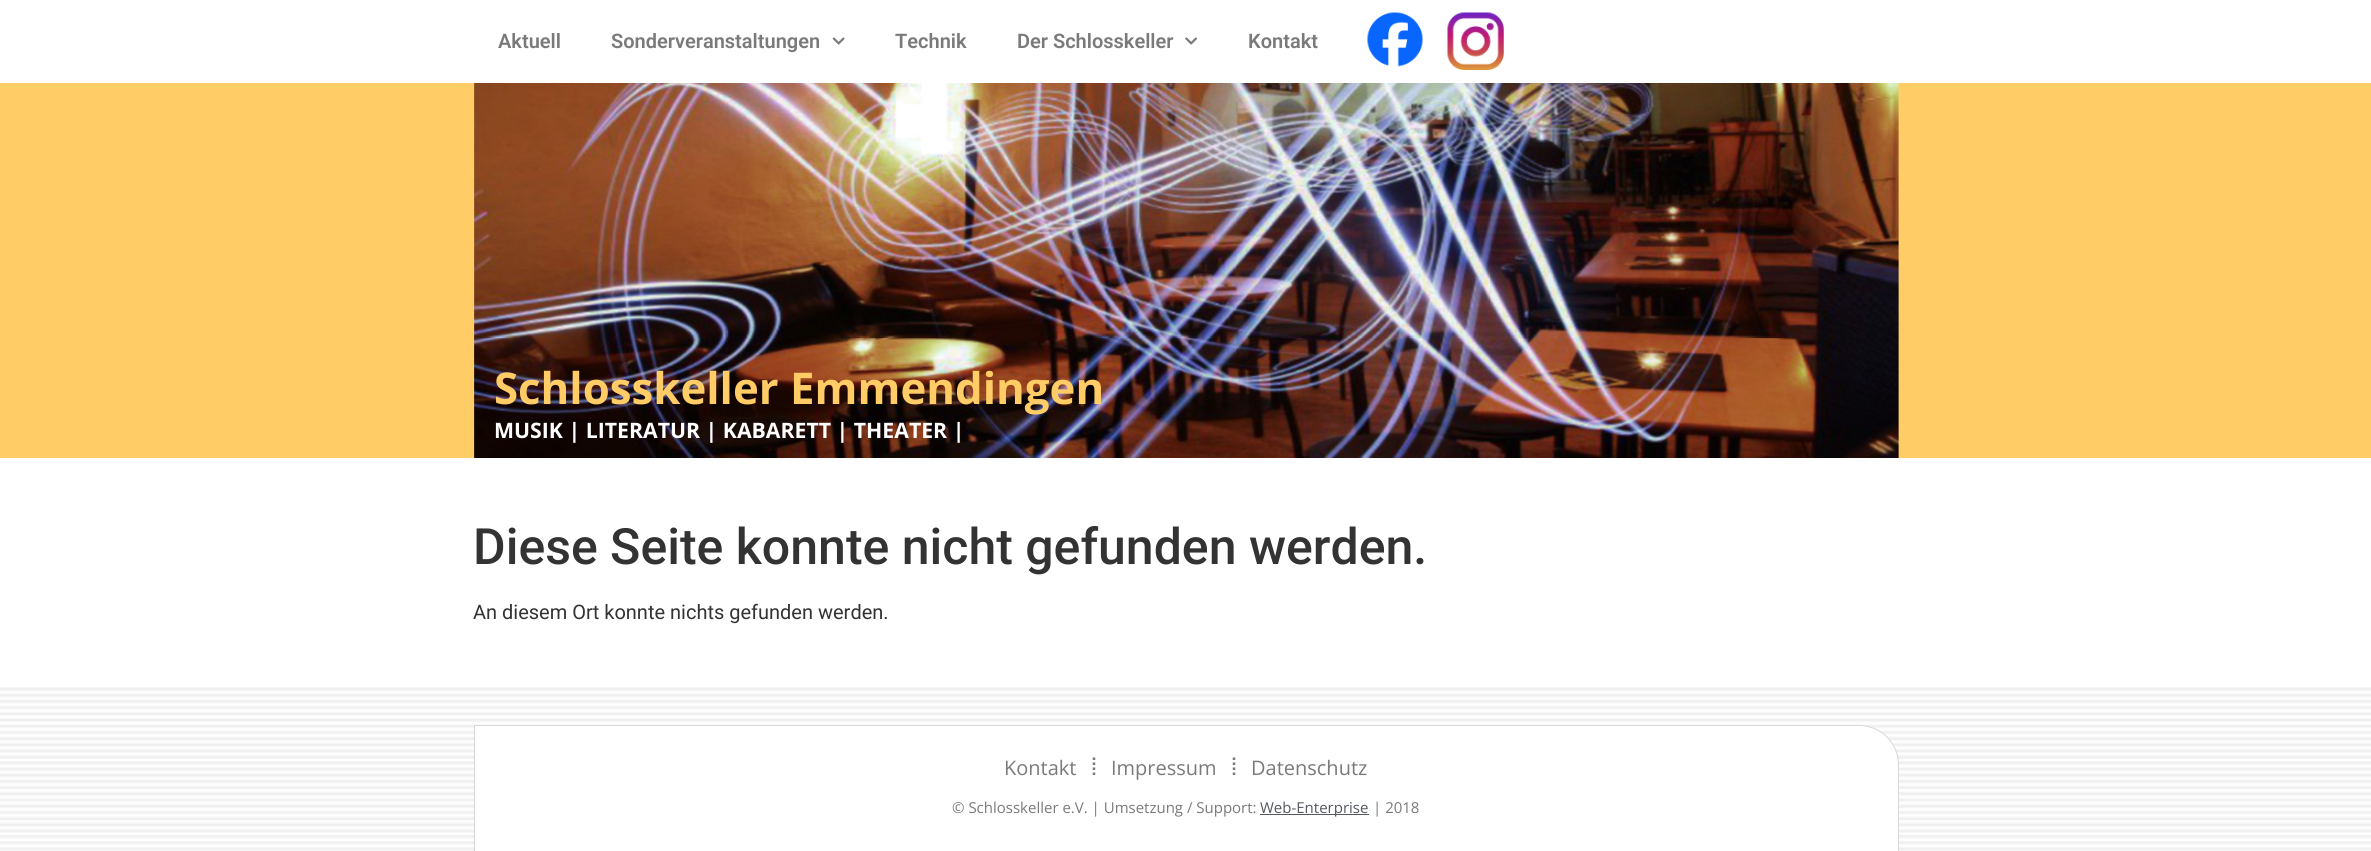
#include <cairo.h>
#include <math.h>
#include <stddef.h>


static void rgb(cairo_t *cr, int r, int g, int b)
{
	cairo_set_source_rgb(cr, r / 255.0, g / 255.0, b / 255.0);
}

static void face(cairo_t *cr, const char *family, double size, int italic, int bold)
{
	cairo_select_font_face(cr, family, italic ? CAIRO_FONT_SLANT_ITALIC : CAIRO_FONT_SLANT_NORMAL,
		bold ? CAIRO_FONT_WEIGHT_BOLD : CAIRO_FONT_WEIGHT_NORMAL);
	cairo_set_font_size(cr, size);
}

static void label(cairo_t *cr, double x, double y, const char *s)
{
	cairo_move_to(cr, x, y);
	cairo_show_text(cr, s);
}

static void rect(cairo_t *cr, double x, double y, double w, double h)
{
	cairo_rectangle(cr, x, y, w, h);
	cairo_fill(cr);
}

static void image(cairo_t *cr, const char *path, double x, double y, double w, double h)
{
	cairo_surface_t *image = cairo_image_surface_create_from_png(path);
	cairo_save(cr);
	cairo_set_source_surface(cr, image, x, y);
	cairo_rectangle(cr, x, y, w, h);
	cairo_fill(cr);
	cairo_restore(cr);
	cairo_surface_destroy(image);
}

static void draw(cairo_t *cr) {
	rgb(cr, 255, 255, 255);
	cairo_paint(cr);
	face(cr, "Roboto SemiBold", 20, 0, 0);
	rgb(cr, 122, 122, 122);
	label(cr, 498, 48, "Aktuell");
	label(cr, 611, 48, "Sonderveranstaltungen");
	image(cr, "image0.png", 832, 37, 13, 8);
	label(cr, 895, 48, "Technik");
	label(cr, 1017, 48, "Der Schlosskeller");
	image(cr, "image1.png", 1185, 37, 12, 8);
	label(cr, 1248, 48, "Kontakt");
	image(cr, "image2.png", 1367, 12, 56, 55);
	image(cr, "image3.png", 1447, 12, 57, 58);
	rgb(cr, 255, 204, 102);
	rect(cr, 0, 83, 2371, 375);
	image(cr, "image4.png", 474, 83, 1425, 375);
	face(cr, "Open Sans", 43.75, 0, 1);
	label(cr, 494, 404, "Schlosskeller Emmendingen");
	face(cr, "Open Sans", 21.25, 0, 1);
	rgb(cr, 255, 255, 255);
	label(cr, 494, 438, "MUSIK | LITERATUR | KABARETT | THEATER |");
	face(cr, "Roboto Medium", 50, 0, 0);
	rgb(cr, 51, 51, 51);
	label(cr, 473, 564, "Diese Seite konnte nicht gefunden werden.");
	face(cr, "Roboto", 20, 0, 0);
	label(cr, 473, 619, "An diesem Ort konnte nichts gefunden werden.");
	image(cr, "image5.png", 0, 687, 2371, 164);
	rgb(cr, 255, 255, 255);
	cairo_new_path(cr);
	cairo_move_to(cr, 474.5, 725.5);
	cairo_line_to(cr, 1859, 725.5);
	cairo_curve_to(cr, 1881, 725.5, 1898.5, 743, 1898.5, 765);
	cairo_line_to(cr, 1898.5, 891.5);
	cairo_line_to(cr, 514, 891.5);
	cairo_curve_to(cr, 492, 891.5, 474.5, 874, 474.5, 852);
	cairo_close_path(cr);
	cairo_fill_preserve(cr);
	rgb(cr, 216, 216, 216);
	cairo_set_line_width(cr, 1);
	cairo_stroke(cr);
	face(cr, "Open Sans", 20, 0, 0);
	rgb(cr, 122, 122, 122);
	label(cr, 1004, 775, "Kontakt");
	cairo_new_path(cr);
	cairo_move_to(cr, 1094, 757.5);
	cairo_line_to(cr, 1094, 777.5);
	cairo_set_line_width(cr, 2.5);
	cairo_set_dash(cr, (double[]){2.5, 2.5}, 2, 0);
	cairo_stroke(cr);
	label(cr, 1111, 775, "Impressum");
	cairo_new_path(cr);
	cairo_move_to(cr, 1234, 757.5);
	cairo_line_to(cr, 1234, 777.5);
	cairo_stroke(cr);
	label(cr, 1251, 775, "Datenschutz");
	face(cr, "Open Sans", 15, 0, 0);
	label(cr, 952, 813, "© Schlosskeller e.V. | Umsetzung / Support:");
	rgb(cr, 84, 89, 95);
	rect(cr, 1260, 814, 109, 1);
	label(cr, 1260, 813, "Web-Enterprise");
	rgb(cr, 122, 122, 122);
	label(cr, 1373, 813, "| 2018");
}

int main(void) {
	cairo_surface_t *surface = cairo_image_surface_create(CAIRO_FORMAT_RGB24, 2371, 851);
	cairo_t *cr = cairo_create(surface);
	cairo_font_options_t *options = cairo_font_options_create();
	cairo_font_options_set_hint_metrics(options, CAIRO_HINT_METRICS_OFF);
	cairo_font_options_set_hint_style(options, CAIRO_HINT_STYLE_NONE);
	cairo_set_font_options(cr, options);
	cairo_set_miter_limit(cr, 4);
	draw(cr);
	cairo_surface_write_to_png(surface, "render.png");
	cairo_font_options_destroy(options);
	cairo_destroy(cr);
	cairo_surface_destroy(surface);
	return 0;
}
